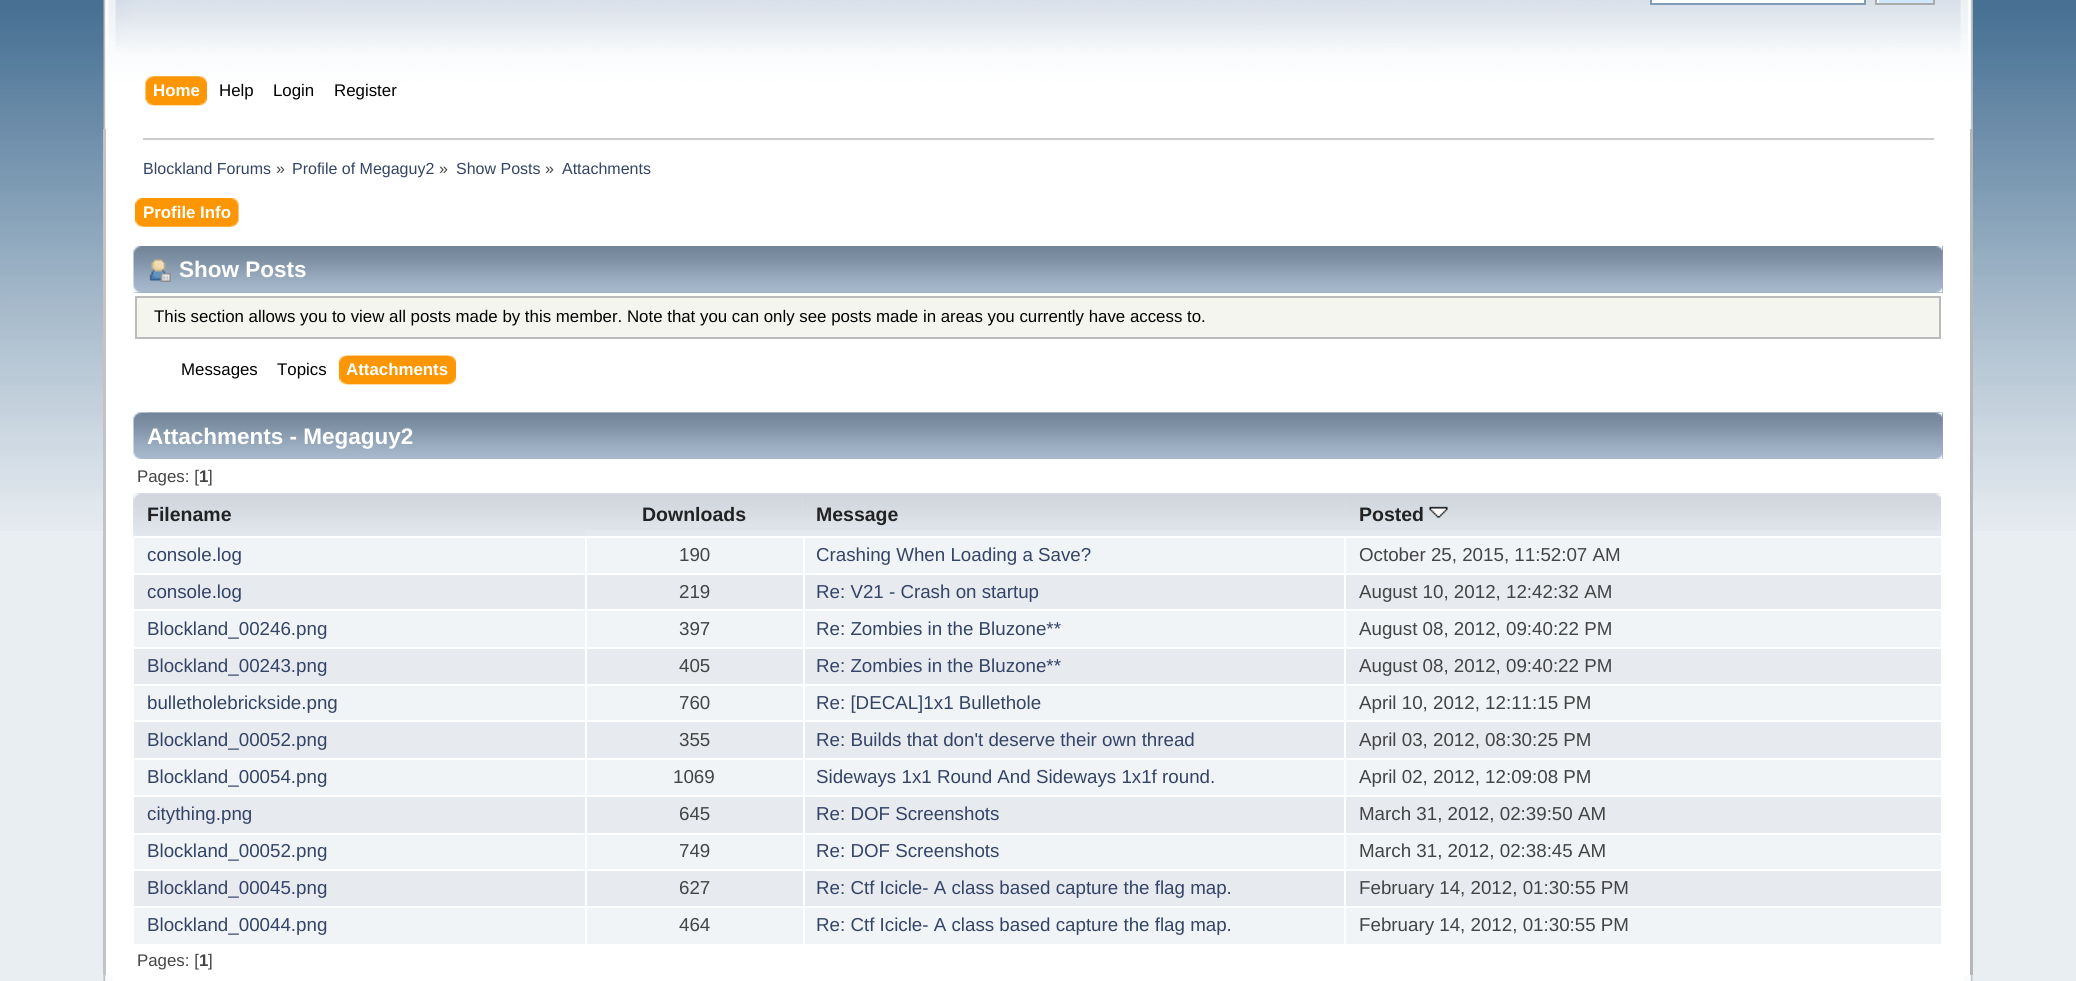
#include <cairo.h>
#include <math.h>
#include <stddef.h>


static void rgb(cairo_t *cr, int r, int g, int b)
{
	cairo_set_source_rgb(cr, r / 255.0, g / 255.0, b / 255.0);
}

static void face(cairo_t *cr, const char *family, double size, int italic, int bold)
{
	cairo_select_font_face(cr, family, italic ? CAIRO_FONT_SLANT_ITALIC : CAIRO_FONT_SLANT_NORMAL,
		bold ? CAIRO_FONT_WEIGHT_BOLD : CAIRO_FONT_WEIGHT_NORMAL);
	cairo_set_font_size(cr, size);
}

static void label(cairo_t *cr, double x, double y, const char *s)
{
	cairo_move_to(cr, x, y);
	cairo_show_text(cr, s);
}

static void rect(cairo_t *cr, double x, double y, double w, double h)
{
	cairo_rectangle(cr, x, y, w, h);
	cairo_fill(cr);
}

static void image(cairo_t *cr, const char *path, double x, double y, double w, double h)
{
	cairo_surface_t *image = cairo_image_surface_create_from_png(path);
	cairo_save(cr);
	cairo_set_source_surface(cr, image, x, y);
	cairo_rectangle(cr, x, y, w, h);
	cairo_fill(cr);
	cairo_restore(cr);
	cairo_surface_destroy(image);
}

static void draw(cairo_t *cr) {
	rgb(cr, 233, 238, 242);
	cairo_paint(cr);
	image(cr, "image0.png", 0, 0, 2076, 531);
	image(cr, "image1.png", 103, 0, 1870, 129);
	image(cr, "image2.png", 1960, 0, 13, 129);
	rgb(cr, 255, 255, 255);
	cairo_rectangle(cr, 1651, -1, 214, 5);
	cairo_fill_preserve(cr);
	rgb(cr, 127, 157, 185);
	cairo_stroke(cr);
	rgb(cr, 205, 231, 255);
	rect(cr, 1875, 0, 60, 3);
	rgb(cr, 248, 252, 255);
	rect(cr, 1877, 0, 2, 5);
	cairo_rectangle(cr, 1876, -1, 58, 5);
	rgb(cr, 170, 170, 170);
	cairo_stroke(cr);
	image(cr, "image3.png", 153, 76, 54, 30);
	image(cr, "image4.png", 145, 76, 55, 30);
	face(cr, "Liberation Sans", 16.85, 0, 1);
	rgb(cr, 255, 255, 255);
	label(cr, 153, 96, "Home");
	face(cr, "Liberation Sans", 16.85, 0, 0);
	rgb(cr, 0, 0, 0);
	label(cr, 219, 96, "Help");
	label(cr, 273, 96, "Login");
	label(cr, 334, 96, "Register");
	rgb(cr, 255, 255, 255);
	rect(cr, 106, 129, 1864, 846);
	rgb(cr, 195, 195, 195);
	rect(cr, 103, 129, 3, 846);
	rgb(cr, 183, 183, 183);
	rect(cr, 1970, 129, 3, 846);
	rgb(cr, 204, 204, 204);
	rect(cr, 143, 138, 1791, 2);
	face(cr, "Liberation Sans", 16, 0, 0);
	rgb(cr, 51, 68, 102);
	label(cr, 143, 174, "Blockland Forums");
	rgb(cr, 68, 68, 68);
	label(cr, 276, 174, "»");
	rgb(cr, 51, 68, 102);
	label(cr, 292, 174, "Profile of Megaguy2");
	rgb(cr, 68, 68, 68);
	label(cr, 439, 174, "»");
	rgb(cr, 51, 68, 102);
	label(cr, 456, 174, "Show Posts");
	rgb(cr, 68, 68, 68);
	label(cr, 545, 174, "»");
	rgb(cr, 51, 68, 102);
	label(cr, 562, 174, "Attachments");
	image(cr, "image5.png", 142, 198, 97, 29);
	image(cr, "image6.png", 135, 198, 96, 29);
	face(cr, "Liberation Sans", 16.85, 0, 1);
	rgb(cr, 255, 255, 255);
	label(cr, 143, 218, "Profile Info");
	rgb(cr, 153, 171, 191);
	rect(cr, 134, 246, 1809, 47);
	image(cr, "image7.png", 133, 246, 1810, 47);
	image(cr, "image8.png", 1936, 246, 7, 47);
	image(cr, "image9.png", 149, 259, 22, 23);
	face(cr, "Liberation Sans", 22.5, 0, 1);
	rgb(cr, 255, 255, 255);
	label(cr, 179, 277, "Show Posts");
	rgb(cr, 245, 245, 240);
	cairo_rectangle(cr, 136, 297, 1804, 41);
	cairo_fill_preserve(cr);
	rgb(cr, 187, 187, 187);
	cairo_stroke(cr);
	face(cr, "Liberation Sans", 16.85, 0, 0);
	rgb(cr, 0, 0, 0);
	label(cr, 154, 322, "This section allows you to view all posts made by this member. Note that you can only see posts made in areas you currently have access to.");
	label(cr, 181, 375, "Messages");
	label(cr, 277, 375, "Topics");
	image(cr, "image10.png", 346, 355, 110, 30);
	image(cr, "image11.png", 339, 355, 110, 30);
	face(cr, "Liberation Sans", 16.85, 0, 1);
	rgb(cr, 255, 255, 255);
	label(cr, 346, 375, "Attachments");
	rgb(cr, 153, 171, 191);
	rect(cr, 1942, 413, 1, 46);
	image(cr, "image12.png", 133, 412, 1810, 47);
	image(cr, "image13.png", 147, 412, 1796, 47);
	face(cr, "Liberation Sans", 22.5, 0, 1);
	rgb(cr, 255, 255, 255);
	label(cr, 147, 444, "Attachments - Megaguy2");
	face(cr, "Liberation Sans", 16.85, 0, 0);
	rgb(cr, 68, 68, 68);
	label(cr, 137, 482, "Pages: [");
	face(cr, "Liberation Sans", 16.85, 0, 1);
	label(cr, 199, 482, "1");
	face(cr, "Liberation Sans", 16.85, 0, 0);
	label(cr, 208, 482, "]");
	rgb(cr, 227, 233, 239);
	rect(cr, 585, 494, 1356, 42);
	image(cr, "image14.png", 133, 493, 452, 44);
	rgb(cr, 255, 255, 255);
	rect(cr, 134, 536, 451, 1);
	face(cr, "Liberation Sans", 19.5, 0, 1);
	rgb(cr, 34, 34, 34);
	label(cr, 147, 521, "Filename");
	image(cr, "image15.png", 585, 493, 218, 37);
	label(cr, 642, 521, "Downloads");
	image(cr, "image16.png", 802, 493, 544, 37);
	label(cr, 816, 521, "Message");
	image(cr, "image17.png", 1345, 493, 596, 37);
	label(cr, 1359, 521, "Posted");
	image(cr, "image18.png", 1429, 506, 19, 12);
	rgb(cr, 240, 244, 247);
	rect(cr, 134, 538, 1807, 35);
	face(cr, "Liberation Sans", 18.75, 0, 0);
	rgb(cr, 51, 68, 102);
	label(cr, 147, 561, "console.log");
	rgb(cr, 68, 68, 68);
	label(cr, 679, 561, "190");
	rgb(cr, 51, 68, 102);
	label(cr, 816, 561, "Crashing When Loading a Save?");
	rgb(cr, 68, 68, 68);
	label(cr, 1359, 561, "October 25, 2015, 11:52:07 AM");
	rgb(cr, 231, 234, 239);
	rect(cr, 134, 575, 1807, 34);
	rgb(cr, 51, 68, 102);
	label(cr, 147, 598, "console.log");
	rgb(cr, 68, 68, 68);
	label(cr, 679, 598, "219");
	rgb(cr, 51, 68, 102);
	label(cr, 816, 598, "Re: V21 - Crash on startup");
	rgb(cr, 68, 68, 68);
	label(cr, 1359, 598, "August 10, 2012, 12:42:32 AM");
	rgb(cr, 240, 244, 247);
	rect(cr, 134, 611, 1807, 36);
	rgb(cr, 51, 68, 102);
	label(cr, 147, 635, "Blockland_00246.png");
	rgb(cr, 68, 68, 68);
	label(cr, 679, 635, "397");
	rgb(cr, 51, 68, 102);
	label(cr, 816, 635, "Re: Zombies in the Bluzone**");
	rgb(cr, 68, 68, 68);
	label(cr, 1359, 635, "August 08, 2012, 09:40:22 PM");
	rgb(cr, 231, 234, 239);
	rect(cr, 134, 649, 1807, 35);
	rgb(cr, 51, 68, 102);
	label(cr, 147, 672, "Blockland_00243.png");
	rgb(cr, 68, 68, 68);
	label(cr, 679, 672, "405");
	rgb(cr, 51, 68, 102);
	label(cr, 816, 672, "Re: Zombies in the Bluzone**");
	rgb(cr, 68, 68, 68);
	label(cr, 1359, 672, "August 08, 2012, 09:40:22 PM");
	rgb(cr, 240, 244, 247);
	rect(cr, 134, 686, 1807, 34);
	rgb(cr, 51, 68, 102);
	label(cr, 147, 709, "bulletholebrickside.png");
	rgb(cr, 68, 68, 68);
	label(cr, 679, 709, "760");
	rgb(cr, 51, 68, 102);
	label(cr, 816, 709, "Re: [DECAL]1x1 Bullethole");
	rgb(cr, 68, 68, 68);
	label(cr, 1359, 709, "April 10, 2012, 12:11:15 PM");
	rgb(cr, 231, 234, 239);
	rect(cr, 134, 722, 1807, 36);
	rgb(cr, 51, 68, 102);
	label(cr, 147, 746, "Blockland_00052.png");
	rgb(cr, 68, 68, 68);
	label(cr, 679, 746, "355");
	rgb(cr, 51, 68, 102);
	label(cr, 816, 746, "Re: Builds that don't deserve their own thread");
	rgb(cr, 68, 68, 68);
	label(cr, 1359, 746, "April 03, 2012, 08:30:25 PM");
	rgb(cr, 240, 244, 247);
	rect(cr, 134, 760, 1807, 35);
	rgb(cr, 51, 68, 102);
	label(cr, 147, 783, "Blockland_00054.png");
	rgb(cr, 68, 68, 68);
	label(cr, 673, 783, "1069");
	rgb(cr, 51, 68, 102);
	label(cr, 816, 783, "Sideways 1x1 Round And Sideways 1x1f round.");
	rgb(cr, 68, 68, 68);
	label(cr, 1359, 783, "April 02, 2012, 12:09:08 PM");
	rgb(cr, 231, 234, 239);
	rect(cr, 134, 797, 1807, 36);
	rgb(cr, 51, 68, 102);
	label(cr, 147, 820, "citything.png");
	rgb(cr, 68, 68, 68);
	label(cr, 679, 820, "645");
	rgb(cr, 51, 68, 102);
	label(cr, 816, 820, "Re: DOF Screenshots");
	rgb(cr, 68, 68, 68);
	label(cr, 1359, 820, "March 31, 2012, 02:39:50 AM");
	rgb(cr, 240, 244, 247);
	rect(cr, 134, 835, 1807, 34);
	rgb(cr, 51, 68, 102);
	label(cr, 147, 857, "Blockland_00052.png");
	rgb(cr, 68, 68, 68);
	label(cr, 679, 857, "749");
	rgb(cr, 51, 68, 102);
	label(cr, 816, 857, "Re: DOF Screenshots");
	rgb(cr, 68, 68, 68);
	label(cr, 1359, 857, "March 31, 2012, 02:38:45 AM");
	rgb(cr, 231, 234, 239);
	rect(cr, 134, 871, 1807, 35);
	rgb(cr, 51, 68, 102);
	label(cr, 147, 894, "Blockland_00045.png");
	rgb(cr, 68, 68, 68);
	label(cr, 679, 894, "627");
	rgb(cr, 51, 68, 102);
	label(cr, 816, 894, "Re: Ctf Icicle- A class based capture the flag map.");
	rgb(cr, 68, 68, 68);
	label(cr, 1359, 894, "February 14, 2012, 01:30:55 PM");
	rgb(cr, 240, 244, 247);
	rect(cr, 134, 908, 1807, 36);
	rgb(cr, 255, 255, 255);
	rect(cr, 585, 536, 2, 409);
	rgb(cr, 51, 68, 102);
	label(cr, 147, 931, "Blockland_00044.png");
	rgb(cr, 255, 255, 255);
	rect(cr, 803, 536, 2, 409);
	rgb(cr, 68, 68, 68);
	label(cr, 679, 931, "464");
	rgb(cr, 255, 255, 255);
	rect(cr, 1344, 536, 2, 409);
	rgb(cr, 51, 68, 102);
	label(cr, 816, 931, "Re: Ctf Icicle- A class based capture the flag map.");
	rgb(cr, 68, 68, 68);
	label(cr, 1359, 931, "February 14, 2012, 01:30:55 PM");
	face(cr, "Liberation Sans", 16.85, 0, 0);
	label(cr, 137, 966, "Pages: [");
	face(cr, "Liberation Sans", 16.85, 0, 1);
	label(cr, 199, 966, "1");
	face(cr, "Liberation Sans", 16.85, 0, 0);
	label(cr, 208, 966, "]");
	image(cr, "image19.png", 103, 975, 1870, 6);
	image(cr, "image20.png", 1964, 975, 9, 6);
}

int main(void) {
	cairo_surface_t *surface = cairo_image_surface_create(CAIRO_FORMAT_RGB24, 2076, 981);
	cairo_t *cr = cairo_create(surface);
	cairo_font_options_t *options = cairo_font_options_create();
	cairo_font_options_set_hint_metrics(options, CAIRO_HINT_METRICS_OFF);
	cairo_font_options_set_hint_style(options, CAIRO_HINT_STYLE_NONE);
	cairo_set_font_options(cr, options);
	cairo_set_miter_limit(cr, 4);
	draw(cr);
	cairo_surface_write_to_png(surface, "render.png");
	cairo_font_options_destroy(options);
	cairo_destroy(cr);
	cairo_surface_destroy(surface);
	return 0;
}
